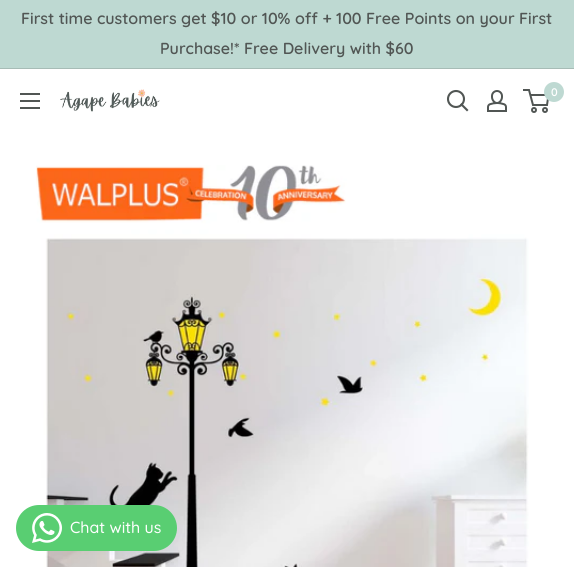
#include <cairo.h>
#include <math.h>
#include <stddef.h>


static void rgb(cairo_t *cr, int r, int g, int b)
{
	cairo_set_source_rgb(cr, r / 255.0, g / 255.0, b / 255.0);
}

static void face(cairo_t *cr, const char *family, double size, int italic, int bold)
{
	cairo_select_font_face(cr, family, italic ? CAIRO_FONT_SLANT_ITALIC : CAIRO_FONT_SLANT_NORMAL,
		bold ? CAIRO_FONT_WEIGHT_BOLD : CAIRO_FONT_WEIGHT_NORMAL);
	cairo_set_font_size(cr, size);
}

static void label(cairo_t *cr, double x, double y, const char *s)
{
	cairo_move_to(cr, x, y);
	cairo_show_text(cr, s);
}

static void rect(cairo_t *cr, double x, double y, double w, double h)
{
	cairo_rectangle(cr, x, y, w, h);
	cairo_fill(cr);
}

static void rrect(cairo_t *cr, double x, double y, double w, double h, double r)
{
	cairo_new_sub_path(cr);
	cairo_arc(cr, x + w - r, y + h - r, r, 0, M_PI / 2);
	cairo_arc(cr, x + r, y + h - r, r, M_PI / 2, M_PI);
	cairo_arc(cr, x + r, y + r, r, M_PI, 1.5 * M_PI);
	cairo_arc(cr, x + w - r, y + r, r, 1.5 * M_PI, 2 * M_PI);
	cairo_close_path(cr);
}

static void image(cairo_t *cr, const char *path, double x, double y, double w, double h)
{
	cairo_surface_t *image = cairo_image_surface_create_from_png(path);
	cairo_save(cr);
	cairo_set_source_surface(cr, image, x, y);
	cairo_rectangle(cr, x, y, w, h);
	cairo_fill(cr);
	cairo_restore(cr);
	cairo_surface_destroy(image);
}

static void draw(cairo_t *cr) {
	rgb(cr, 255, 255, 255);
	cairo_paint(cr);
	rgb(cr, 190, 217, 210);
	rect(cr, 0, 0, 574, 68);
	rgb(cr, 167, 188, 182);
	rect(cr, 0, 68, 574, 1);
	face(cr, "Quicksand SemiBold", 16, 0, 0);
	rgb(cr, 81, 86, 84);
	label(cr, 21, 24, "First time customers get $10 or 10% off + 100 Free Points on your First");
	label(cr, 160, 54, "Purchase!* Free Delivery with $60");
	image(cr, "image0.png", 20, 93, 20, 16);
	image(cr, "image1.png", 60, 89, 100, 23);
	cairo_new_path(cr);
	cairo_move_to(cr, 467, 110);
	cairo_line_to(cr, 461.5, 104.5);
	cairo_set_line_width(cr, 2.1);
	cairo_set_line_cap(cr, CAIRO_LINE_CAP_SQUARE);
	cairo_stroke(cr);
	cairo_arc(cr, 456, 99, 8, 0, 2 * M_PI);
	cairo_set_line_cap(cr, CAIRO_LINE_CAP_BUTT);
	cairo_stroke(cr);
	image(cr, "image2.png", 487, 90, 20, 22);
	cairo_arc(cr, 534, 110, 2, 0, 2 * M_PI);
	cairo_set_line_width(cr, 2);
	cairo_stroke(cr);
	cairo_arc(cr, 545, 110, 2, 0, 2 * M_PI);
	cairo_stroke(cr);
	cairo_new_path(cr);
	cairo_move_to(cr, 530.5, 95);
	cairo_line_to(cr, 548.5, 95);
	cairo_line_to(cr, 547, 105);
	cairo_line_to(cr, 533, 105);
	cairo_line_to(cr, 529, 90);
	cairo_line_to(cr, 523, 90);
	cairo_stroke(cr);
	rgb(cr, 190, 217, 210);
	cairo_arc(cr, 554, 92, 10, 0, 2 * M_PI);
	cairo_fill(cr);
	face(cr, "Quicksand SemiBold", 11, 0, 0);
	rgb(cr, 255, 255, 255);
	label(cr, 551, 96, "0");
	image(cr, "image3.png", 36, 165, 493, 402);
	rgb(cr, 89, 206, 114);
	rrect(cr, 16, 505, 161, 46, 23);
	cairo_fill(cr);
	image(cr, "image4.png", 32, 513, 30, 30);
	face(cr, "Quicksand Medium", 16, 0, 0);
	rgb(cr, 255, 255, 255);
	label(cr, 70, 533, "Chat with us");
}

int main(void) {
	cairo_surface_t *surface = cairo_image_surface_create(CAIRO_FORMAT_RGB24, 574, 567);
	cairo_t *cr = cairo_create(surface);
	cairo_font_options_t *options = cairo_font_options_create();
	cairo_font_options_set_hint_metrics(options, CAIRO_HINT_METRICS_OFF);
	cairo_font_options_set_hint_style(options, CAIRO_HINT_STYLE_NONE);
	cairo_set_font_options(cr, options);
	cairo_set_miter_limit(cr, 4);
	draw(cr);
	cairo_surface_write_to_png(surface, "render.png");
	cairo_font_options_destroy(options);
	cairo_destroy(cr);
	cairo_surface_destroy(surface);
	return 0;
}
